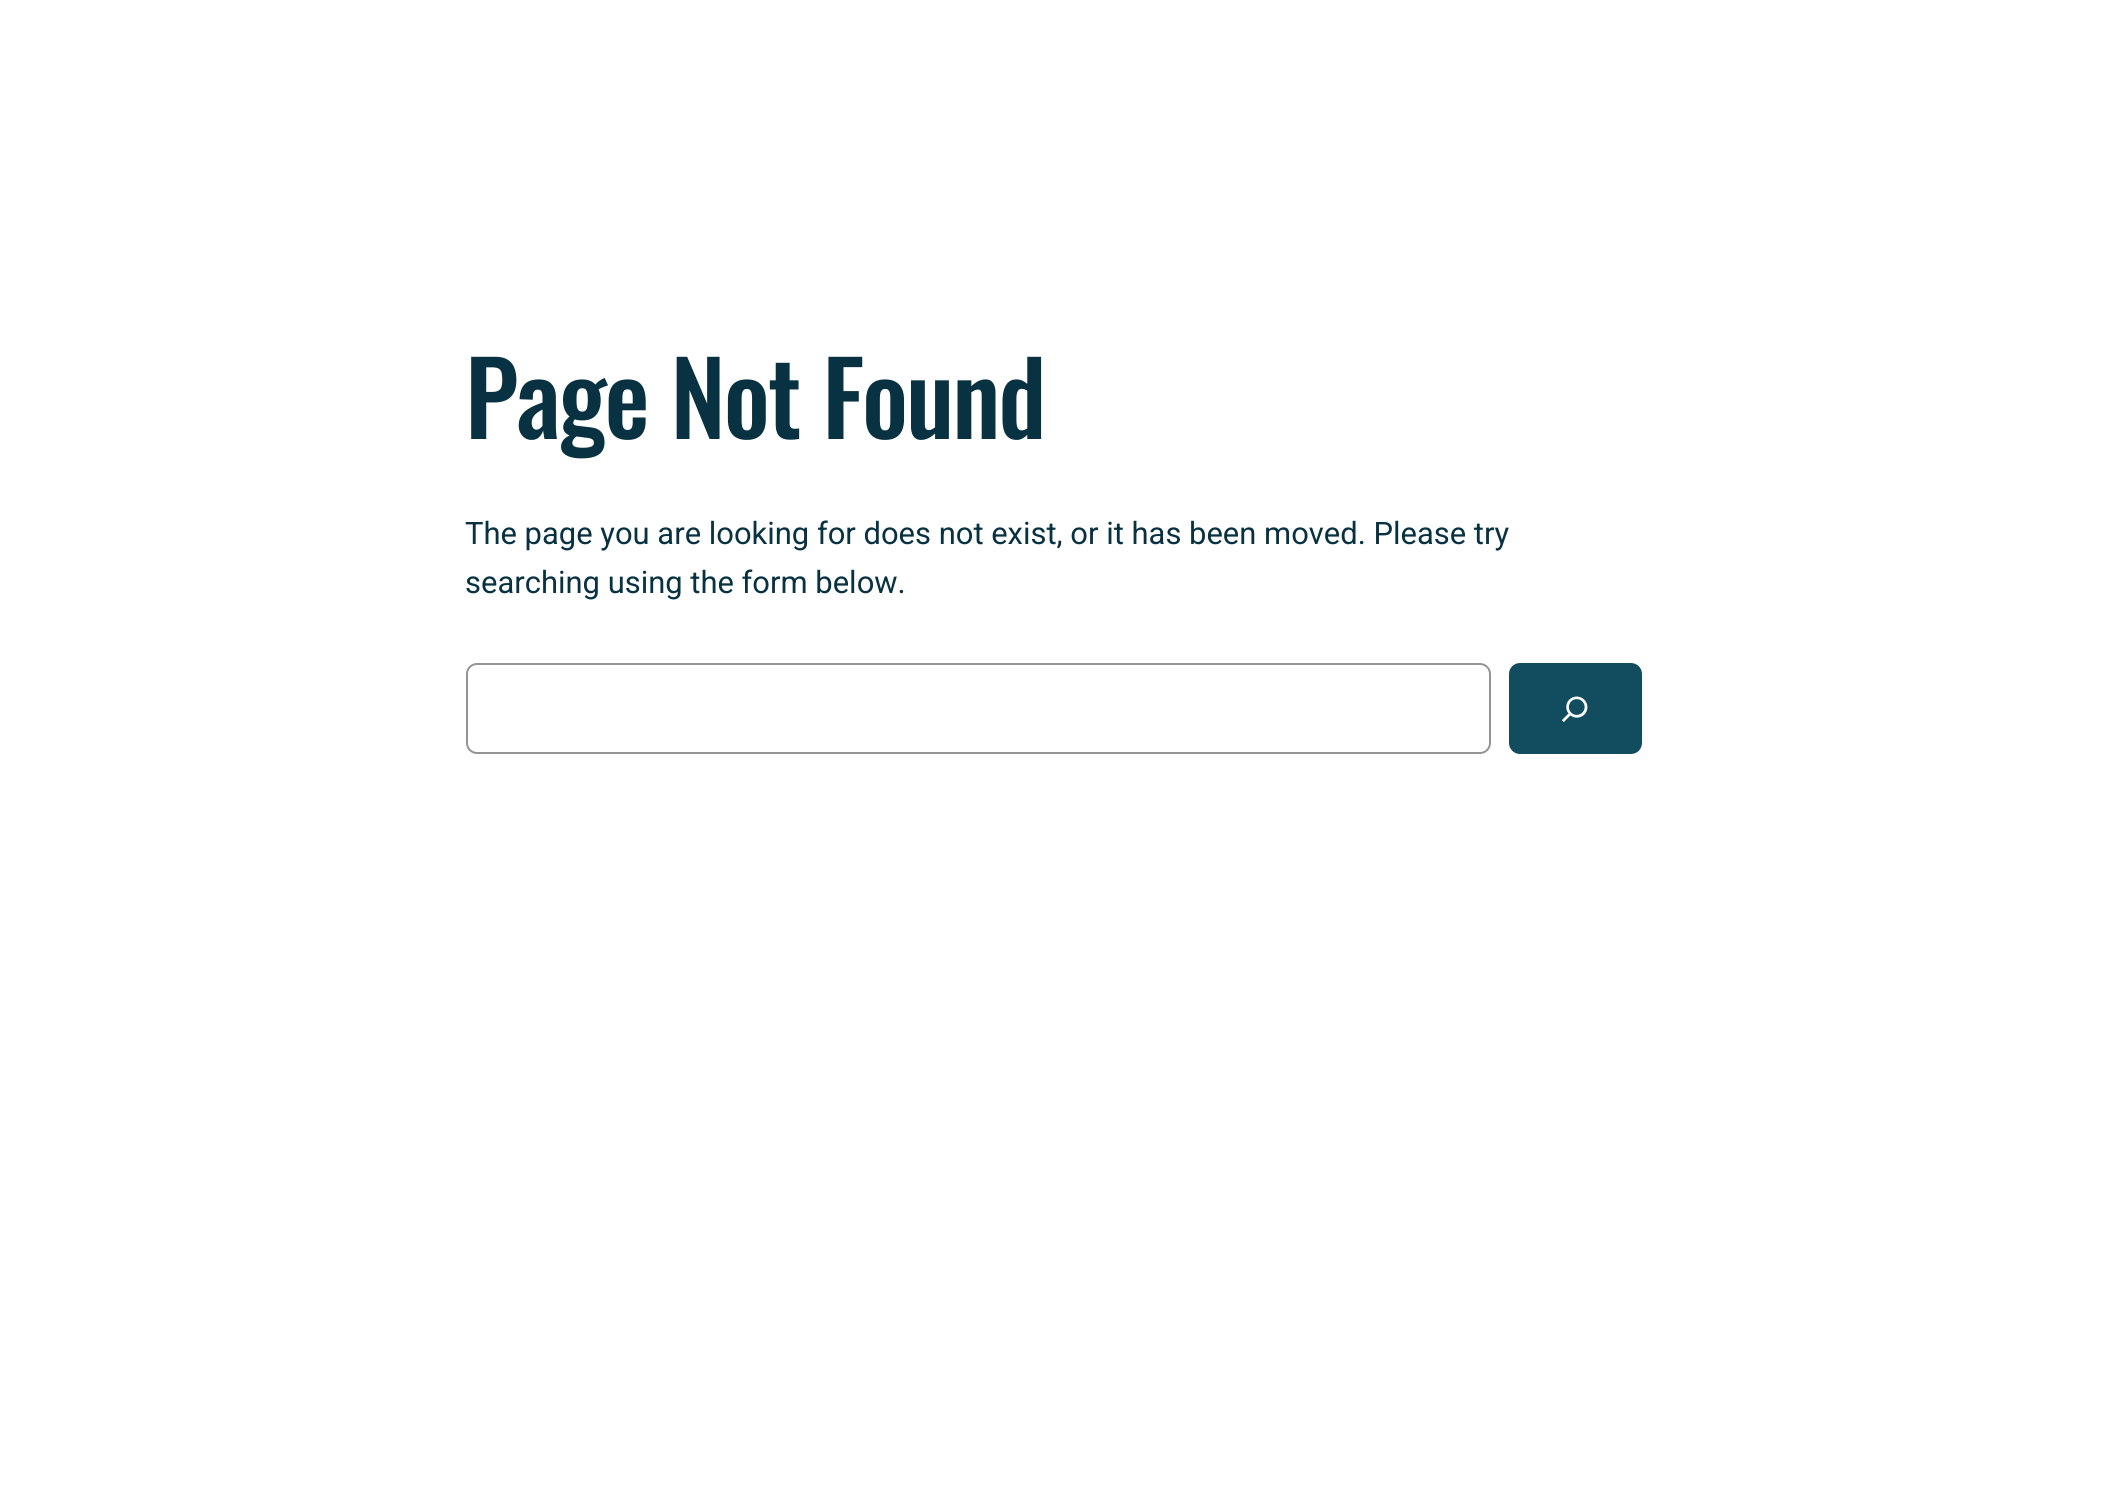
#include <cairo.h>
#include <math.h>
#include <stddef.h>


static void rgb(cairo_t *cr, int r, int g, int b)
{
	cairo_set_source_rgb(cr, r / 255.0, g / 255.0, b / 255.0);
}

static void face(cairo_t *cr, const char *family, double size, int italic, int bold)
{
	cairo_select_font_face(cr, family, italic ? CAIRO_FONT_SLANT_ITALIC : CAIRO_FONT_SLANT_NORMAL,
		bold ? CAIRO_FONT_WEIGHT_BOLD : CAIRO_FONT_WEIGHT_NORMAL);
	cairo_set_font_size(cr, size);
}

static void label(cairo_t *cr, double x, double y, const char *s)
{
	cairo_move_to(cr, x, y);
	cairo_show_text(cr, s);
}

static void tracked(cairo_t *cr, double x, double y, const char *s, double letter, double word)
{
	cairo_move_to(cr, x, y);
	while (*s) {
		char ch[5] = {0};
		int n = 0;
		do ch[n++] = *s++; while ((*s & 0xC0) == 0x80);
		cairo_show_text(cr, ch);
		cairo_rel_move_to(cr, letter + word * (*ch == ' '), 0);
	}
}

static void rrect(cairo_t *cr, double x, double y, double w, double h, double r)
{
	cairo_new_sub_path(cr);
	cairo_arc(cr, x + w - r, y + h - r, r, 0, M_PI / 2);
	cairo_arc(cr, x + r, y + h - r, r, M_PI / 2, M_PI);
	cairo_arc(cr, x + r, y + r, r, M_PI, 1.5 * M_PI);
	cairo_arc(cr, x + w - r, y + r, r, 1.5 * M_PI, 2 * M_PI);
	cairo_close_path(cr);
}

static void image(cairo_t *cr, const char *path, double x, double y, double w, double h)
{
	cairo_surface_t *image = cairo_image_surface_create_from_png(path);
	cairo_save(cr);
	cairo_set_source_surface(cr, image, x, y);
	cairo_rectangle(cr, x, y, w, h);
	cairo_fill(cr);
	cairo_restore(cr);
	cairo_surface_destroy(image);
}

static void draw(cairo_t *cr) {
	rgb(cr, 255, 255, 255);
	cairo_paint(cr);
	face(cr, "Oswald Medium", 101.5, 0, 0);
	rgb(cr, 8, 49, 65);
	tracked(cr, 465, 439, "Page Not Found", -2, 0);
	face(cr, "Roboto", 30.95, 0, 0);
	label(cr, 465, 544, "The page you are looking for does not exist, or it has been moved. Please try");
	label(cr, 465, 593, "searching using the form below.");
	rrect(cr, 467, 664, 1023, 89, 10);
	rgb(cr, 148, 148, 148);
	cairo_stroke(cr);
	rgb(cr, 17, 76, 95);
	rrect(cr, 1509, 663, 133, 91, 11);
	cairo_fill(cr);
	image(cr, "image0.png", 1562, 696, 26, 26);
}

int main(void) {
	cairo_surface_t *surface = cairo_image_surface_create(CAIRO_FORMAT_RGB24, 2104, 1493);
	cairo_t *cr = cairo_create(surface);
	cairo_font_options_t *options = cairo_font_options_create();
	cairo_font_options_set_hint_metrics(options, CAIRO_HINT_METRICS_OFF);
	cairo_font_options_set_hint_style(options, CAIRO_HINT_STYLE_NONE);
	cairo_set_font_options(cr, options);
	cairo_set_miter_limit(cr, 4);
	draw(cr);
	cairo_surface_write_to_png(surface, "render.png");
	cairo_font_options_destroy(options);
	cairo_destroy(cr);
	cairo_surface_destroy(surface);
	return 0;
}
